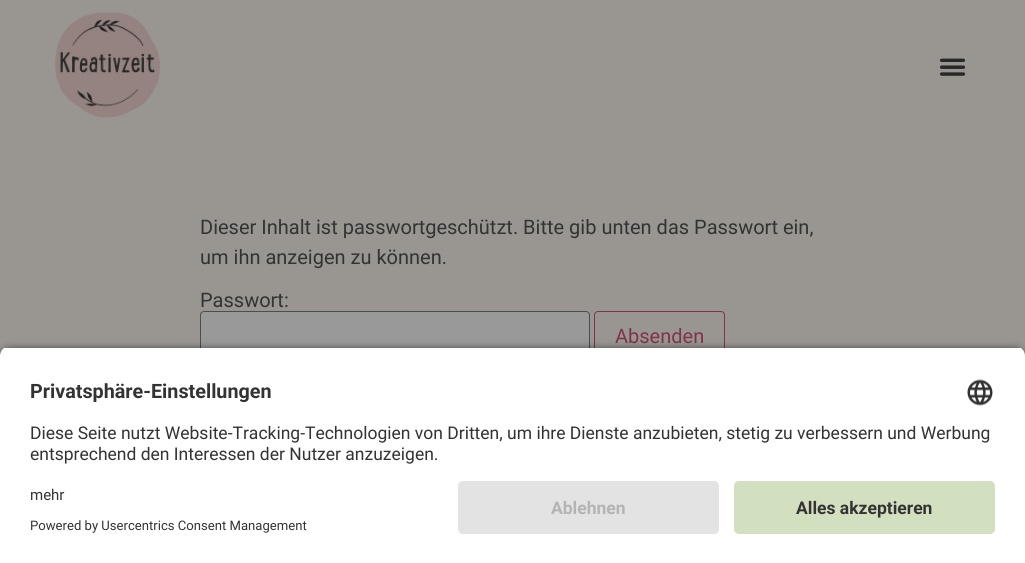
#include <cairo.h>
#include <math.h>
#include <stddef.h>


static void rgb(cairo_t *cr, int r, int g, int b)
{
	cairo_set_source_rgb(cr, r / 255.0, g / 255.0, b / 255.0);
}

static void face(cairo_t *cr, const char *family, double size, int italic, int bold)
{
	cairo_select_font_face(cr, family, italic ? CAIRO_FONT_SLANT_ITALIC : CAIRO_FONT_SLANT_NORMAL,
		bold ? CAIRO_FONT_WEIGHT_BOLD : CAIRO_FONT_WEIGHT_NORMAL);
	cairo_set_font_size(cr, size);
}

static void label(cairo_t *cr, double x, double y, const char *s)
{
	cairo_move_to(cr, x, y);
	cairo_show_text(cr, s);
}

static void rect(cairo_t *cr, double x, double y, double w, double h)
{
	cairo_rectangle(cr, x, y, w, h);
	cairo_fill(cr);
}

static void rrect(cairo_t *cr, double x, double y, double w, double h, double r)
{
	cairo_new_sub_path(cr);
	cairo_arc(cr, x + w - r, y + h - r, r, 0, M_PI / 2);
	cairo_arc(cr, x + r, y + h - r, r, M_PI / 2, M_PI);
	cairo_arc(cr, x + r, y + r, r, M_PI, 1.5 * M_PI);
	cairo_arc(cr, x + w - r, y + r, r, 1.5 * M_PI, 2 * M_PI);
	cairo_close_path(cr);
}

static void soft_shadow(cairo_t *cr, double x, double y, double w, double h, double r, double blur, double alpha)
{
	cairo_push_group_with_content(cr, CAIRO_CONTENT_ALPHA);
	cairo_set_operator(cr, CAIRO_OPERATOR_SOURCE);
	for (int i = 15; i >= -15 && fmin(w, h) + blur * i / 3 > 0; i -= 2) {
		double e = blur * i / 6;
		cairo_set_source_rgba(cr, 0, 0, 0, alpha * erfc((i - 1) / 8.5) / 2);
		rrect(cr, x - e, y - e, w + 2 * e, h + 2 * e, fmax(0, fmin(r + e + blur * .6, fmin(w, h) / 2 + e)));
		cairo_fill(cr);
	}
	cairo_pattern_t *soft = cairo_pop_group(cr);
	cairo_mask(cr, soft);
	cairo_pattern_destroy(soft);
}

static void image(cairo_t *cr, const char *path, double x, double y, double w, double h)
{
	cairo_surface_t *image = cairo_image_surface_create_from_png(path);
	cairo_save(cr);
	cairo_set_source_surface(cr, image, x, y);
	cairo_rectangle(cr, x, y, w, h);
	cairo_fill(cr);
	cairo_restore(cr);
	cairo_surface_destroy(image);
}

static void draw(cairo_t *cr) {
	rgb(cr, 153, 150, 146);
	cairo_paint(cr);
	image(cr, "image0.png", 55, 12, 106, 106);
	image(cr, "image1.png", 939, 58, 27, 18);
	face(cr, "Roboto", 20, 0, 0);
	rgb(cr, 51, 51, 51);
	label(cr, 200, 234, "Dieser Inhalt ist passwortgeschützt. Bitte gib unten das Passwort ein,");
	label(cr, 200, 264, "um ihn anzeigen zu können.");
	label(cr, 200, 307, "Passwort:");
	rgb(cr, 153, 153, 153);
	rrect(cr, 200.5, 311.5, 389, 52, 3.5);
	cairo_fill_preserve(cr);
	rgb(cr, 77, 77, 77);
	cairo_set_line_width(cr, 1);
	cairo_stroke(cr);
	rrect(cr, 594.5, 311.5, 130, 52, 3.5);
	rgb(cr, 128, 51, 77);
	cairo_stroke(cr);
	label(cr, 615, 343, "Absenden");
	rgb(cr, 0, 0, 0);
	soft_shadow(cr, 0, 350, 1025, 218, 10, 4.5, 0.8);
	cairo_save(cr);
	cairo_new_path(cr);
	cairo_move_to(cr, 10, 346);
	cairo_line_to(cr, 1015, 346);
	cairo_curve_to(cr, 1020.5, 346, 1025, 350.5, 1025, 356);
	cairo_line_to(cr, 1025, 471);
	cairo_line_to(cr, 0, 471);
	cairo_line_to(cr, 0, 356);
	cairo_curve_to(cr, 0, 350.5, 4.5, 346, 10, 346);
	cairo_close_path(cr);
	cairo_clip(cr);
	rgb(cr, 255, 255, 255);
	rect(cr, 0, 348, 1025, 123);
	cairo_restore(cr);
	face(cr, "Roboto", 19.75, 0, 1);
	rgb(cr, 51, 51, 51);
	label(cr, 30, 398, "Privatsphäre-Einstellungen");
	image(cr, "image2.png", 967, 379, 26, 27);
	face(cr, "Roboto", 17.5, 0, 0);
	label(cr, 30, 439, "Diese Seite nutzt Website-Tracking-Technologien von Dritten, um ihre Dienste anzubieten, stetig zu verbessern und Werbung");
	label(cr, 30, 460, "entsprechend den Interessen der Nutzer anzuzeigen.");
	rgb(cr, 255, 255, 255);
	rect(cr, 0, 471, 1025, 92);
	face(cr, "Roboto", 15, 0, 0);
	rgb(cr, 51, 51, 51);
	label(cr, 30, 500, "mehr");
	face(cr, "Roboto", 13.1, 0, 0);
	label(cr, 30, 530, "Powered by Usercentrics Consent Management");
	rgb(cr, 227, 227, 227);
	rrect(cr, 458, 481, 261, 53, 5);
	cairo_fill(cr);
	face(cr, "Roboto", 17.5, 0, 1);
	rgb(cr, 181, 180, 180);
	label(cr, 551, 514, "Ablehnen");
	rgb(cr, 210, 224, 191);
	rrect(cr, 734, 481, 261, 53, 5);
	cairo_fill(cr);
	rgb(cr, 51, 51, 51);
	label(cr, 796, 514, "Alles akzeptieren");
}

int main(void) {
	cairo_surface_t *surface = cairo_image_surface_create(CAIRO_FORMAT_RGB24, 1025, 563);
	cairo_t *cr = cairo_create(surface);
	cairo_font_options_t *options = cairo_font_options_create();
	cairo_font_options_set_hint_metrics(options, CAIRO_HINT_METRICS_OFF);
	cairo_font_options_set_hint_style(options, CAIRO_HINT_STYLE_NONE);
	cairo_set_font_options(cr, options);
	cairo_set_miter_limit(cr, 4);
	draw(cr);
	cairo_surface_write_to_png(surface, "render.png");
	cairo_font_options_destroy(options);
	cairo_destroy(cr);
	cairo_surface_destroy(surface);
	return 0;
}
